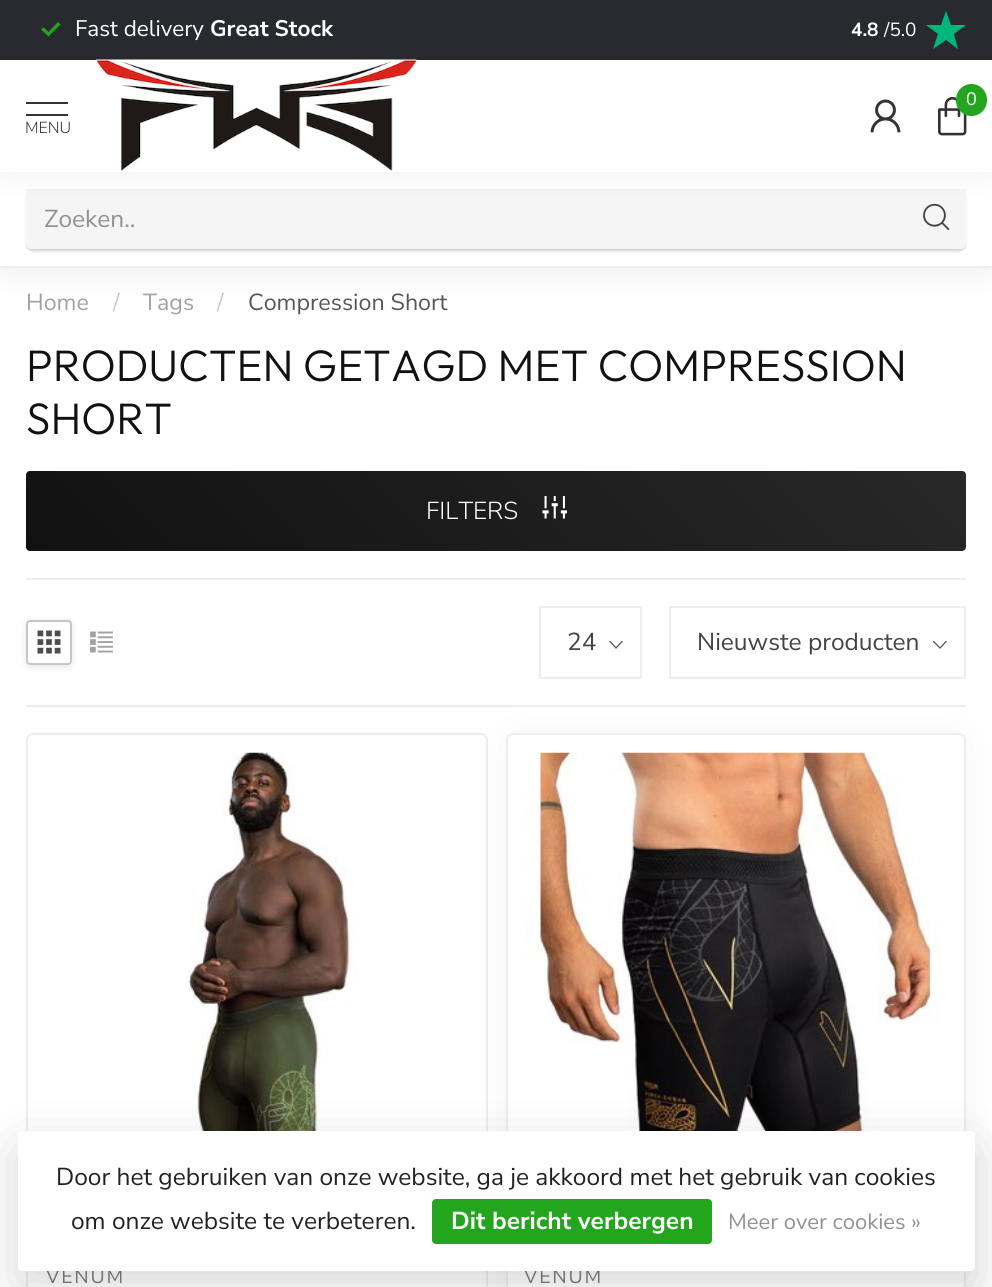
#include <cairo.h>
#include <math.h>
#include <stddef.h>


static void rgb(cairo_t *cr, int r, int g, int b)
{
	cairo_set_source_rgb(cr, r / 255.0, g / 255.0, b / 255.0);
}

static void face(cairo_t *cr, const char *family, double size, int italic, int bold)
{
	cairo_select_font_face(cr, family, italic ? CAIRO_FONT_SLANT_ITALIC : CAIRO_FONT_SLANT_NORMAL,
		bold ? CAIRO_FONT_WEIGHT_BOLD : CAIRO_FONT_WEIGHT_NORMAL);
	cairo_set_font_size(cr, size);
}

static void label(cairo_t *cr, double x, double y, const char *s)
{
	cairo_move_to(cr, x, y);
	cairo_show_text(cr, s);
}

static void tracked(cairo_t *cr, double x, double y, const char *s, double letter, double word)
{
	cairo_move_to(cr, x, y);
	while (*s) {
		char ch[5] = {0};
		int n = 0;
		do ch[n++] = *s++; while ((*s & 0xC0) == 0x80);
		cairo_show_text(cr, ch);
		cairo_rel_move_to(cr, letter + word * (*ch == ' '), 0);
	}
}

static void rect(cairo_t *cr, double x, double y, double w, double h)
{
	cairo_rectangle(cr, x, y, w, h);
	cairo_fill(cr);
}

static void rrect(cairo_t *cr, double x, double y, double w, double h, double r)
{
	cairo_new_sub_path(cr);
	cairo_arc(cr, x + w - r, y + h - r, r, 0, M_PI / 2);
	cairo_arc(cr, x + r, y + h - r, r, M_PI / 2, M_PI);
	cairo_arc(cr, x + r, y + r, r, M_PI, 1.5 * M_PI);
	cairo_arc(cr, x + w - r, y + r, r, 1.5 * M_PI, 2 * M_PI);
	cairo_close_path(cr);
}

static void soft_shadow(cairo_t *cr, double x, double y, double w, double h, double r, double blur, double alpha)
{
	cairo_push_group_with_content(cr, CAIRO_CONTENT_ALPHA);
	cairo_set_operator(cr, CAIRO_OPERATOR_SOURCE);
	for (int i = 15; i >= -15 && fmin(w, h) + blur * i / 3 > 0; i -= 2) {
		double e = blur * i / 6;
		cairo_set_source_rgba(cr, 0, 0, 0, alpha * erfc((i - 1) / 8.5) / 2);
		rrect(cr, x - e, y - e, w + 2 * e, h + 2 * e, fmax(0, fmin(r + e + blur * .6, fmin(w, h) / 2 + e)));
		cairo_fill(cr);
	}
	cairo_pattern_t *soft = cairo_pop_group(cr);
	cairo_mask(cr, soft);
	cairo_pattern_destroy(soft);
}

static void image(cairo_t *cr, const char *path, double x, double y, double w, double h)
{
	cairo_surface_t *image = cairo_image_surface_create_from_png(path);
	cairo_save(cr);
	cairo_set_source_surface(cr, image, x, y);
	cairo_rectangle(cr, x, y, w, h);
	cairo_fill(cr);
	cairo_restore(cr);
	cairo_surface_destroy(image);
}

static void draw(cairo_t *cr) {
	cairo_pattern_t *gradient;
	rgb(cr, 255, 255, 255);
	cairo_paint(cr);
	rgb(cr, 0, 0, 0);
	soft_shadow(cr, 0, 172, 992, 96, 0, 19, 0.08);
	rgb(cr, 255, 255, 255);
	rect(cr, 0, 172, 992, 94);
	rgb(cr, 155, 155, 155);
	soft_shadow(cr, 28, 194, 936, 56, 4, 2, 0.75);
	rgb(cr, 255, 255, 255);
	rrect(cr, 26, 189, 940, 60, 5);
	cairo_fill(cr);
	cairo_set_source_rgba(cr, 0.2, 0.2, 0.2, 0.05);
	rect(cr, 26, 189, 940, 60);
	image(cr, "image3.png", 923, 203, 27, 28);
	rgb(cr, 0, 0, 0);
	soft_shadow(cr, 0, 0, 992, 172, 0, 17.5, 0.07);
	rgb(cr, 255, 255, 255);
	rect(cr, 0, 60, 992, 112);
	rgb(cr, 40, 42, 48);
	rect(cr, 0, 0, 992, 60);
	rgb(cr, 35, 166, 30);
	cairo_new_path(cr);
	cairo_move_to(cr, 48.5, 36.5);
	cairo_line_to(cr, 41, 29.5);
	cairo_line_to(cr, 43.5, 27.5);
	cairo_line_to(cr, 48.5, 32);
	cairo_line_to(cr, 58, 22);
	cairo_line_to(cr, 60.5, 24.5);
	cairo_close_path(cr);
	cairo_fill(cr);
	face(cr, "Nunito Sans", 22.5, 0, 0);
	rgb(cr, 255, 255, 255);
	label(cr, 75, 36, "Fast delivery");
	face(cr, "Nunito Sans", 22.5, 0, 1);
	label(cr, 210, 36, "Great Stock");
	face(cr, "Nunito Sans", 19, 0, 1);
	label(cr, 851, 36, "4.8");
	face(cr, "Nunito Sans", 19, 0, 0);
	label(cr, 884, 36, "/5.0");
	rgb(cr, 0, 182, 122);
	cairo_new_path(cr);
	cairo_move_to(cr, 966, 25);
	cairo_line_to(cr, 951, 25);
	cairo_line_to(cr, 946, 11);
	cairo_line_to(cr, 941, 25);
	cairo_line_to(cr, 926, 25);
	cairo_line_to(cr, 938, 34);
	cairo_line_to(cr, 933, 49);
	cairo_line_to(cr, 946, 40);
	cairo_line_to(cr, 958, 49);
	cairo_line_to(cr, 954, 34);
	cairo_close_path(cr);
	cairo_fill(cr);
	image(cr, "image0.png", 96, 59, 321, 112);
	image(cr, "image1.png", 870, 99, 31, 34);
	image(cr, "image2.png", 938, 96, 29, 40);
	rgb(cr, 35, 166, 30);
	rrect(cr, 956, 84, 31, 32, 15.5);
	cairo_fill(cr);
	face(cr, "Nunito Sans", 18, 0, 0);
	rgb(cr, 255, 255, 255);
	label(cr, 966, 105, "0");
	rgb(cr, 51, 51, 51);
	rect(cr, 26, 102, 42, 2);
	rect(cr, 26, 114, 42, 2);
	face(cr, "Nunito Sans Light", 16, 0, 0);
	label(cr, 25, 133, "MENU");
	rgb(cr, 238, 238, 238);
	rect(cr, 0, 266, 992, 2);
	face(cr, "Nunito Sans", 24.5, 0, 0);
	rgb(cr, 146, 146, 146);
	label(cr, 44, 227, "Zoeken..");
	face(cr, "Nunito Sans", 23.25, 0, 0);
	rgb(cr, 162, 162, 162);
	label(cr, 26, 310, "Home");
	rgb(cr, 199, 199, 199);
	label(cr, 113, 310, "/");
	rgb(cr, 162, 162, 162);
	label(cr, 143, 310, "Tags");
	rgb(cr, 199, 199, 199);
	label(cr, 217, 310, "/");
	rgb(cr, 87, 87, 87);
	label(cr, 248, 310, "Compression Short");
	face(cr, "Outfit Light", 44.1, 0, 0);
	rgb(cr, 17, 17, 17);
	label(cr, 26, 381, "PRODUCTEN GETAGD MET COMPRESSION");
	label(cr, 26, 434, "SHORT");
	gradient = cairo_pattern_create_linear(241, 766, 751, 256);
	cairo_pattern_add_color_stop_rgba(gradient, 0, 0.067, 0.067, 0.067, 1);
	cairo_pattern_add_color_stop_rgba(gradient, 1, 0.157, 0.157, 0.157, 1);
	cairo_set_source(cr, gradient);
	cairo_pattern_destroy(gradient);
	rrect(cr, 26, 471, 940, 80, 4);
	cairo_fill(cr);
	face(cr, "Nunito Sans Light", 24.5, 0, 0);
	rgb(cr, 255, 255, 255);
	label(cr, 426, 519, "FILTERS");
	image(cr, "image4.png", 542, 496, 25, 23);
	rgb(cr, 238, 238, 238);
	rect(cr, 26, 578, 940, 2);
	rect(cr, 26, 705, 940, 2);
	cairo_save(cr);
	cairo_set_fill_rule(cr, CAIRO_FILL_RULE_EVEN_ODD);
	cairo_new_path(cr);
	cairo_move_to(cr, 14, 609);
	cairo_line_to(cr, 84, 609);
	cairo_line_to(cr, 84, 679);
	cairo_line_to(cr, 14, 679);
	cairo_close_path(cr);
	cairo_move_to(cr, 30, 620);
	cairo_line_to(cr, 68, 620);
	cairo_curve_to(cr, 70, 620, 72, 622, 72, 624);
	cairo_line_to(cr, 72, 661);
	cairo_curve_to(cr, 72, 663, 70, 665, 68, 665);
	cairo_line_to(cr, 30, 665);
	cairo_curve_to(cr, 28, 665, 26, 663, 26, 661);
	cairo_line_to(cr, 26, 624);
	cairo_curve_to(cr, 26, 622, 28, 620, 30, 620);
	cairo_close_path(cr);
	cairo_clip(cr);
	rgb(cr, 0, 0, 0);
	soft_shadow(cr, 26, 621, 46, 46, 4, 3.5, 0.1);
	cairo_restore(cr);
	rrect(cr, 27, 621, 44, 43, 3);
	rgb(cr, 198, 198, 198);
	cairo_stroke(cr);
	image(cr, "image5.png", 37, 630, 24, 24);
	image(cr, "image6.png", 90, 631, 23, 22);
	cairo_save(cr);
	cairo_rectangle(cr, 609, 641, 14, 8);
	cairo_clip(cr);
	cairo_new_path(cr);
	cairo_move_to(cr, 622.5, 641);
	cairo_line_to(cr, 616, 648);
	cairo_line_to(cr, 609.5, 641);
	rgb(cr, 89, 89, 89);
	cairo_set_line_width(cr, 1.3);
	cairo_stroke(cr);
	cairo_restore(cr);
	cairo_rectangle(cr, 540, 607, 101, 71);
	rgb(cr, 238, 238, 238);
	cairo_stroke(cr);
	face(cr, "Nunito Sans", 24.5, 0, 0);
	rgb(cr, 68, 68, 68);
	label(cr, 567, 650, "24");
	cairo_save(cr);
	cairo_rectangle(cr, 933, 641, 14, 8);
	cairo_clip(cr);
	cairo_new_path(cr);
	cairo_move_to(cr, 946.5, 641);
	cairo_line_to(cr, 940, 648);
	cairo_line_to(cr, 933, 641);
	rgb(cr, 89, 89, 89);
	cairo_set_line_width(cr, 1.3);
	cairo_stroke(cr);
	cairo_restore(cr);
	cairo_rectangle(cr, 670, 607, 295, 71);
	rgb(cr, 238, 238, 238);
	cairo_stroke(cr);
	rgb(cr, 68, 68, 68);
	label(cr, 697, 650, "Nieuwste producten");
	rrect(cr, 27, 734, 460, 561, 6);
	rgb(cr, 238, 238, 238);
	cairo_stroke(cr);
	image(cr, "image7.png", 185, 752, 173, 379);
	face(cr, "Nunito Sans", 19.5, 0, 0);
	rgb(cr, 124, 124, 124);
	tracked(cr, 46, 1283, "VENUM", 1.75, 0);
	rgb(cr, 0, 0, 0);
	soft_shadow(cr, 516, 744, 440, 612, 0, 23, 0.07);
	rgb(cr, 255, 255, 255);
	rrect(cr, 507, 734, 458, 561, 6);
	cairo_fill_preserve(cr);
	rgb(cr, 238, 238, 238);
	cairo_stroke(cr);
	image(cr, "image8.png", 525, 752, 415, 379);
	rgb(cr, 124, 124, 124);
	tracked(cr, 524, 1283, "VENUM", 1.75, 0);
	rgb(cr, 0, 0, 0);
	soft_shadow(cr, 18, 1148, 957, 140, 4, 26, 0.15);
	rgb(cr, 255, 255, 255);
	rrect(cr, 18, 1131, 957, 140, 4);
	cairo_fill(cr);
	face(cr, "Nunito Sans", 24.5, 0, 0);
	rgb(cr, 34, 34, 34);
	label(cr, 56, 1185, "Door het gebruiken van onze website, ga je akkoord met het gebruik van cookies");
	label(cr, 71, 1229, "om onze website te verbeteren.");
	rgb(cr, 35, 166, 30);
	rrect(cr, 432, 1199, 280, 45, 4);
	cairo_fill(cr);
	face(cr, "Nunito Sans", 24.5, 0, 1);
	rgb(cr, 255, 255, 255);
	label(cr, 451, 1229, "Dit bericht verbergen");
	face(cr, "Nunito Sans", 22, 0, 0);
	rgb(cr, 146, 146, 146);
	label(cr, 728, 1229, "Meer over cookies »");
}

int main(void) {
	cairo_surface_t *surface = cairo_image_surface_create(CAIRO_FORMAT_RGB24, 992, 1287);
	cairo_t *cr = cairo_create(surface);
	cairo_font_options_t *options = cairo_font_options_create();
	cairo_font_options_set_hint_metrics(options, CAIRO_HINT_METRICS_OFF);
	cairo_font_options_set_hint_style(options, CAIRO_HINT_STYLE_NONE);
	cairo_set_font_options(cr, options);
	cairo_set_miter_limit(cr, 4);
	draw(cr);
	cairo_surface_write_to_png(surface, "render.png");
	cairo_font_options_destroy(options);
	cairo_destroy(cr);
	cairo_surface_destroy(surface);
	return 0;
}
